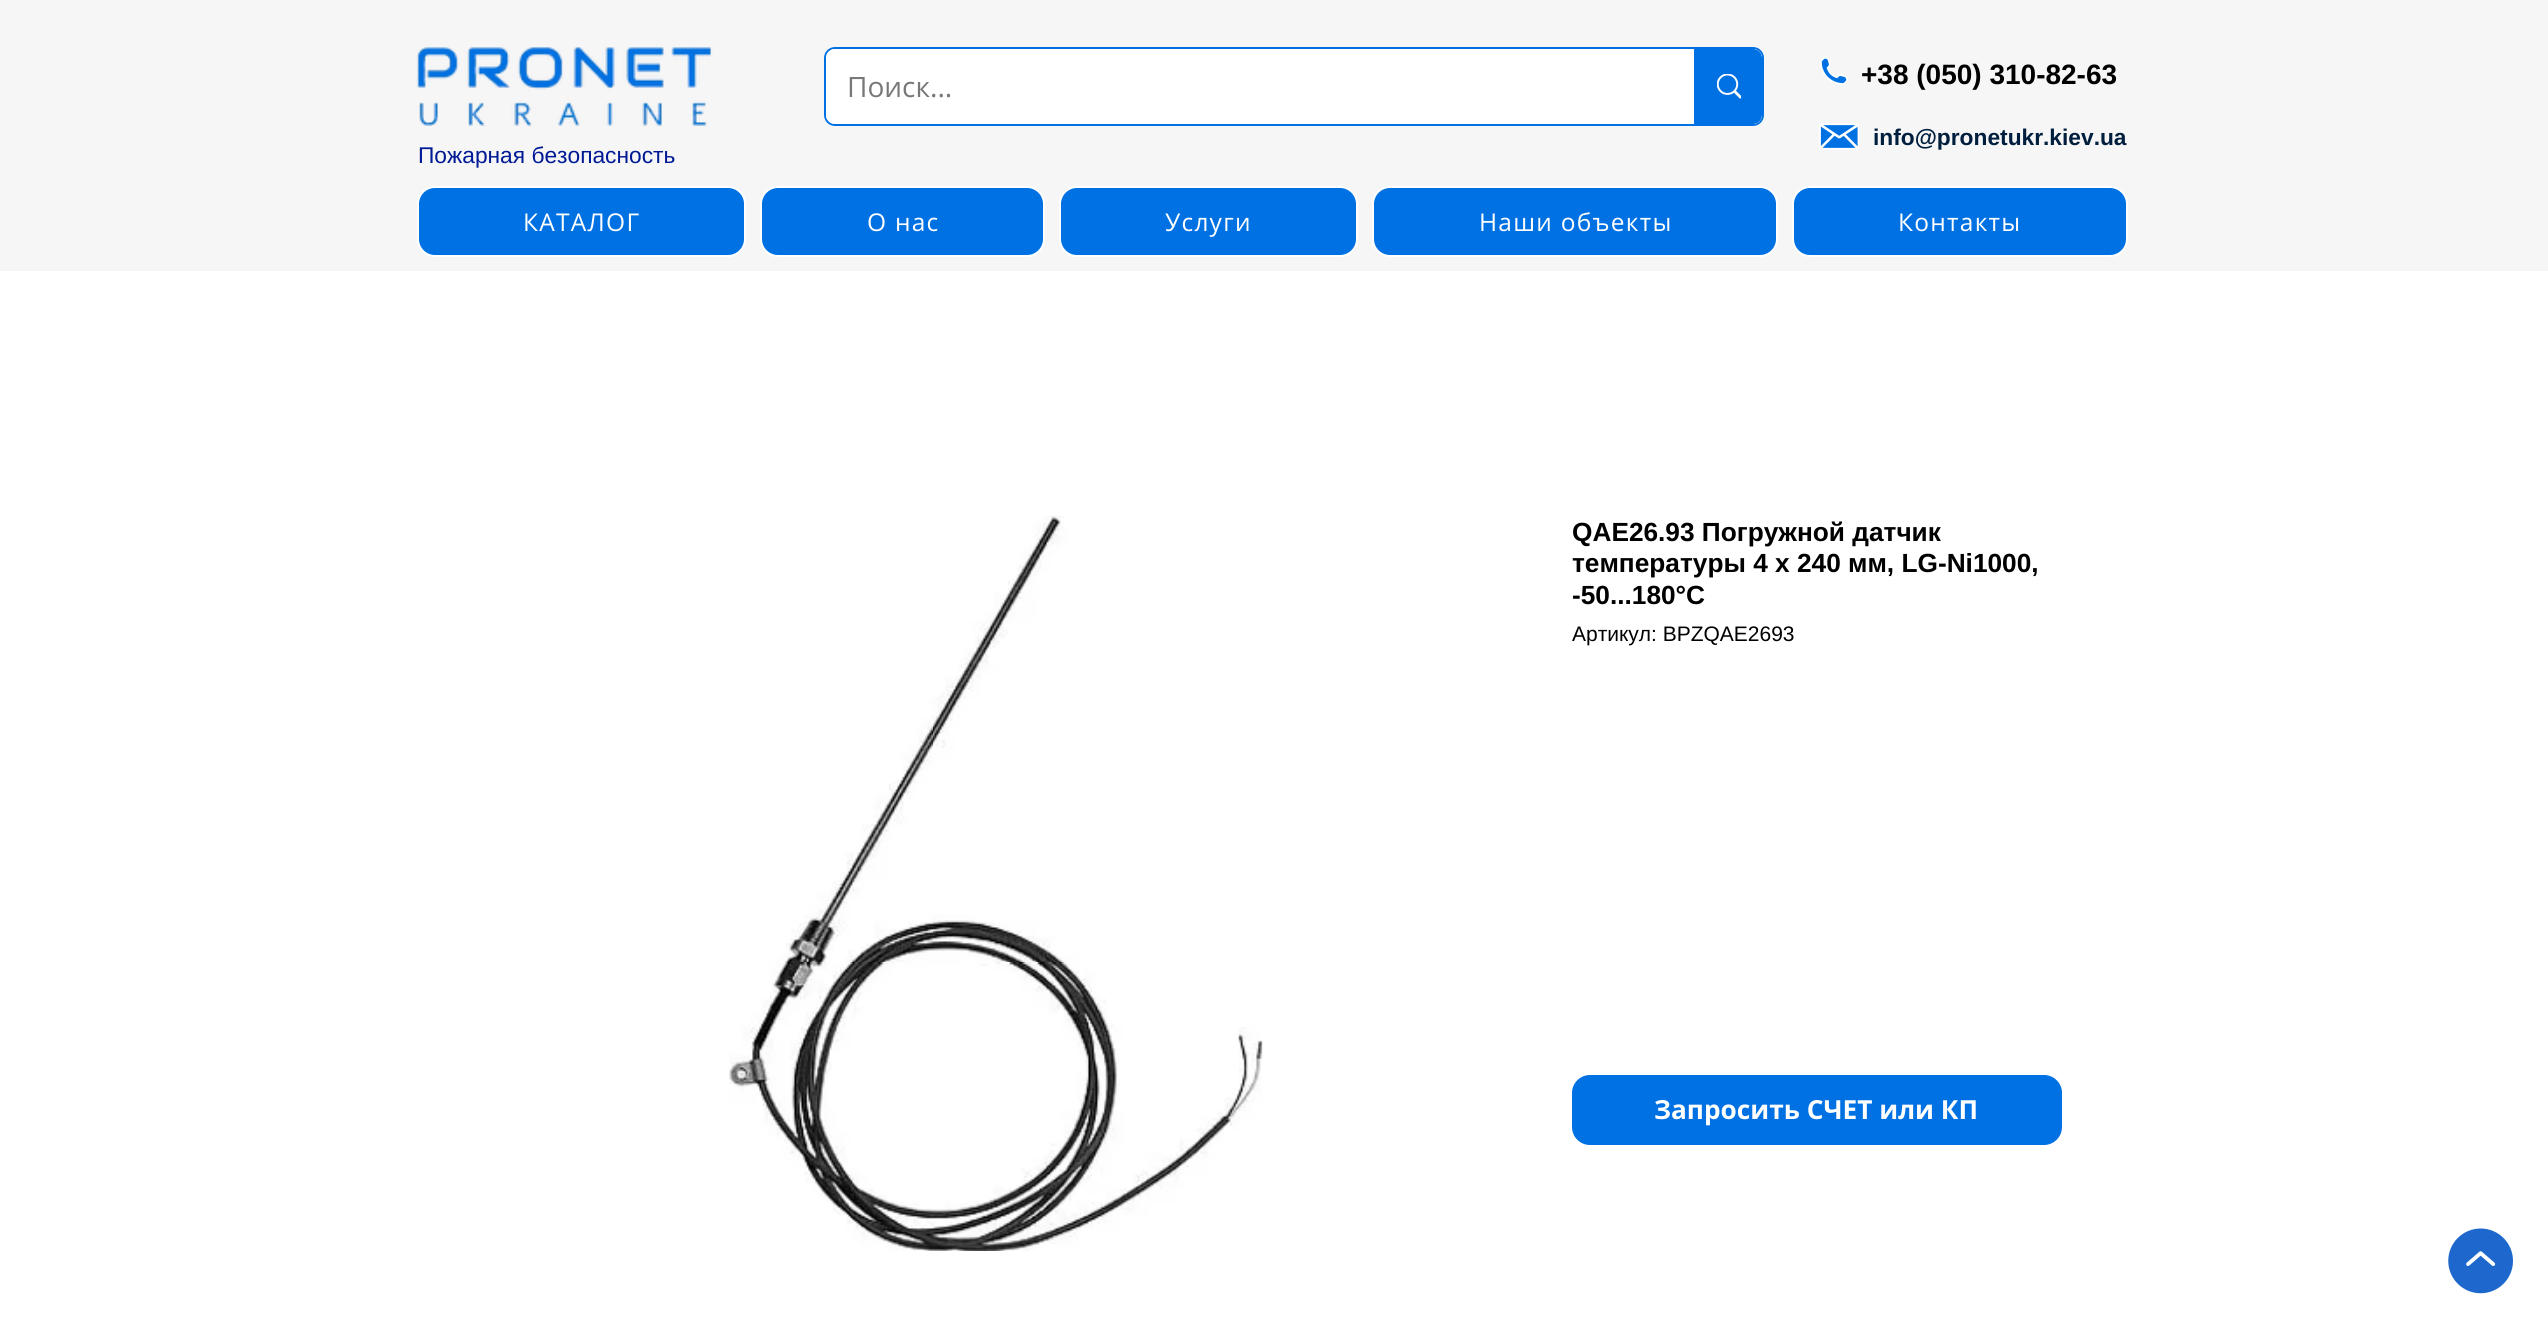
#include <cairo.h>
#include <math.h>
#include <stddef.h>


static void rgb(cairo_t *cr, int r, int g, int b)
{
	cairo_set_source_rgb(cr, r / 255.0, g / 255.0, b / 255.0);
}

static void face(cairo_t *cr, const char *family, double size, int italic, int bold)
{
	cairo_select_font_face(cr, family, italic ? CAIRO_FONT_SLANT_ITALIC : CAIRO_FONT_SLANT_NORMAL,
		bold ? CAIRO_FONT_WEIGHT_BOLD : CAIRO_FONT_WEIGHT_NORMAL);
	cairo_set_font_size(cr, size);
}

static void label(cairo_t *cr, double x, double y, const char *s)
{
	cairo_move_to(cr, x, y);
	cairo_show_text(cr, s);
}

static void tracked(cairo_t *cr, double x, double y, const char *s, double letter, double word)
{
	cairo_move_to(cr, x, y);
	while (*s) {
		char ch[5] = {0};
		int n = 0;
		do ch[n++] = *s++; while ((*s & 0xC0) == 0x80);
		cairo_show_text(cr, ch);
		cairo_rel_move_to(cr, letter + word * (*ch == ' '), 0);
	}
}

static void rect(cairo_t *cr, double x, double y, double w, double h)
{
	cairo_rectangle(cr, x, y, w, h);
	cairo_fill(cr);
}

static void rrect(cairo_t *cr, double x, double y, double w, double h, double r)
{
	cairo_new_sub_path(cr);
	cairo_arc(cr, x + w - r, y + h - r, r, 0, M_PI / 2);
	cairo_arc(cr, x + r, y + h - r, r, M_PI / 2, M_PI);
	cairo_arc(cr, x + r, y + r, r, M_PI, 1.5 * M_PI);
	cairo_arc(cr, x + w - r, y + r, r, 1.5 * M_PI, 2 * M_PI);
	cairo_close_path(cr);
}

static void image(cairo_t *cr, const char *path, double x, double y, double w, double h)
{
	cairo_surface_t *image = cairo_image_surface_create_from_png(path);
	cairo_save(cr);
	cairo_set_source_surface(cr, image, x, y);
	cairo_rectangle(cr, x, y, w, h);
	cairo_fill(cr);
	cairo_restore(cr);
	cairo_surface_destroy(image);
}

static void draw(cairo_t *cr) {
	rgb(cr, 255, 255, 255);
	cairo_paint(cr);
	rgb(cr, 246, 246, 246);
	rect(cr, 0, 0, 2548, 271);
	image(cr, "image0.png", 416, 47, 297, 79);
	rrect(cr, 825, 48, 938, 77, 10);
	rgb(cr, 0, 113, 227);
	cairo_stroke(cr);
	rgb(cr, 255, 255, 255);
	rrect(cr, 826, 49, 936, 75, 9);
	cairo_fill(cr);
	face(cr, "Open Sans", 28, 0, 0);
	rgb(cr, 120, 120, 120);
	label(cr, 847, 97, "Поиск...");
	rgb(cr, 0, 113, 227);
	cairo_new_path(cr);
	cairo_move_to(cr, 1694, 49);
	cairo_line_to(cr, 1753, 49);
	cairo_curve_to(cr, 1758, 49, 1762, 53, 1762, 58);
	cairo_line_to(cr, 1762, 115);
	cairo_curve_to(cr, 1762, 120, 1758, 124, 1753, 124);
	cairo_line_to(cr, 1694, 124);
	cairo_close_path(cr);
	cairo_fill(cr);
	image(cr, "image1.png", 1717, 74, 24, 25);
	image(cr, "image2.png", 1820, 57, 28, 28);
	face(cr, "Liberation Sans", 28, 0, 1);
	rgb(cr, 0, 0, 0);
	label(cr, 1861, 84, "+38 (050) 310-82-63");
	image(cr, "image3.png", 1819, 123, 40, 27);
	face(cr, "Liberation Sans", 22.75, 0, 1);
	rgb(cr, 0, 30, 61);
	label(cr, 1873, 145, "info@pronetukr.kiev.ua");
	face(cr, "Liberation Sans", 22.75, 0, 0);
	rgb(cr, 0, 25, 148);
	label(cr, 418, 163, "Пожарная безопасность");
	rgb(cr, 0, 113, 227);
	rrect(cr, 418, 187, 327, 69, 17);
	cairo_fill_preserve(cr);
	rgb(cr, 255, 255, 255);
	cairo_stroke(cr);
	face(cr, "Open Sans", 24.5, 0, 0);
	tracked(cr, 523, 231, "КАТАЛОГ", 1.25, 0);
	rgb(cr, 0, 113, 227);
	rrect(cr, 761, 187, 283, 69, 17);
	cairo_fill_preserve(cr);
	rgb(cr, 255, 255, 255);
	cairo_stroke(cr);
	tracked(cr, 867, 231, "О нас", 1.25, 0);
	rgb(cr, 0, 113, 227);
	rrect(cr, 1060, 187, 297, 69, 17);
	cairo_fill_preserve(cr);
	rgb(cr, 255, 255, 255);
	cairo_stroke(cr);
	tracked(cr, 1165, 231, "Услуги", 1.25, 0);
	rgb(cr, 0, 113, 227);
	rrect(cr, 1373, 187, 404, 69, 17);
	cairo_fill_preserve(cr);
	rgb(cr, 255, 255, 255);
	cairo_stroke(cr);
	tracked(cr, 1479, 231, "Наши объекты", 1.25, 0);
	rgb(cr, 0, 113, 227);
	rrect(cr, 1793, 187, 334, 69, 17);
	cairo_fill_preserve(cr);
	rgb(cr, 255, 255, 255);
	cairo_stroke(cr);
	tracked(cr, 1898, 231, "Контакты", 1.25, 0);
	image(cr, "image4.png", 729, 516, 534, 735);
	face(cr, "Liberation Sans", 26.25, 0, 1);
	rgb(cr, 0, 0, 0);
	label(cr, 1572, 541, "QAE26.93 Погружной датчик");
	label(cr, 1572, 572, "температуры 4 x 240 мм, LG-Ni1000,");
	label(cr, 1572, 604, "-50...180°C");
	face(cr, "Liberation Sans", 21, 0, 0);
	label(cr, 1572, 641, "Артикул: BPZQAE2693");
	rgb(cr, 0, 113, 227);
	rrect(cr, 1572, 1075, 490, 70, 18);
	cairo_fill(cr);
	face(cr, "Open Sans", 26.25, 0, 1);
	rgb(cr, 255, 255, 255);
	label(cr, 1654, 1119, "Запросить СЧЕТ или КП");
	image(cr, "image5.png", 2448, 1228, 65, 66);
}

int main(void) {
	cairo_surface_t *surface = cairo_image_surface_create(CAIRO_FORMAT_RGB24, 2548, 1327);
	cairo_t *cr = cairo_create(surface);
	cairo_font_options_t *options = cairo_font_options_create();
	cairo_font_options_set_hint_metrics(options, CAIRO_HINT_METRICS_OFF);
	cairo_font_options_set_hint_style(options, CAIRO_HINT_STYLE_NONE);
	cairo_set_font_options(cr, options);
	cairo_set_miter_limit(cr, 4);
	draw(cr);
	cairo_surface_write_to_png(surface, "render.png");
	cairo_font_options_destroy(options);
	cairo_destroy(cr);
	cairo_surface_destroy(surface);
	return 0;
}
